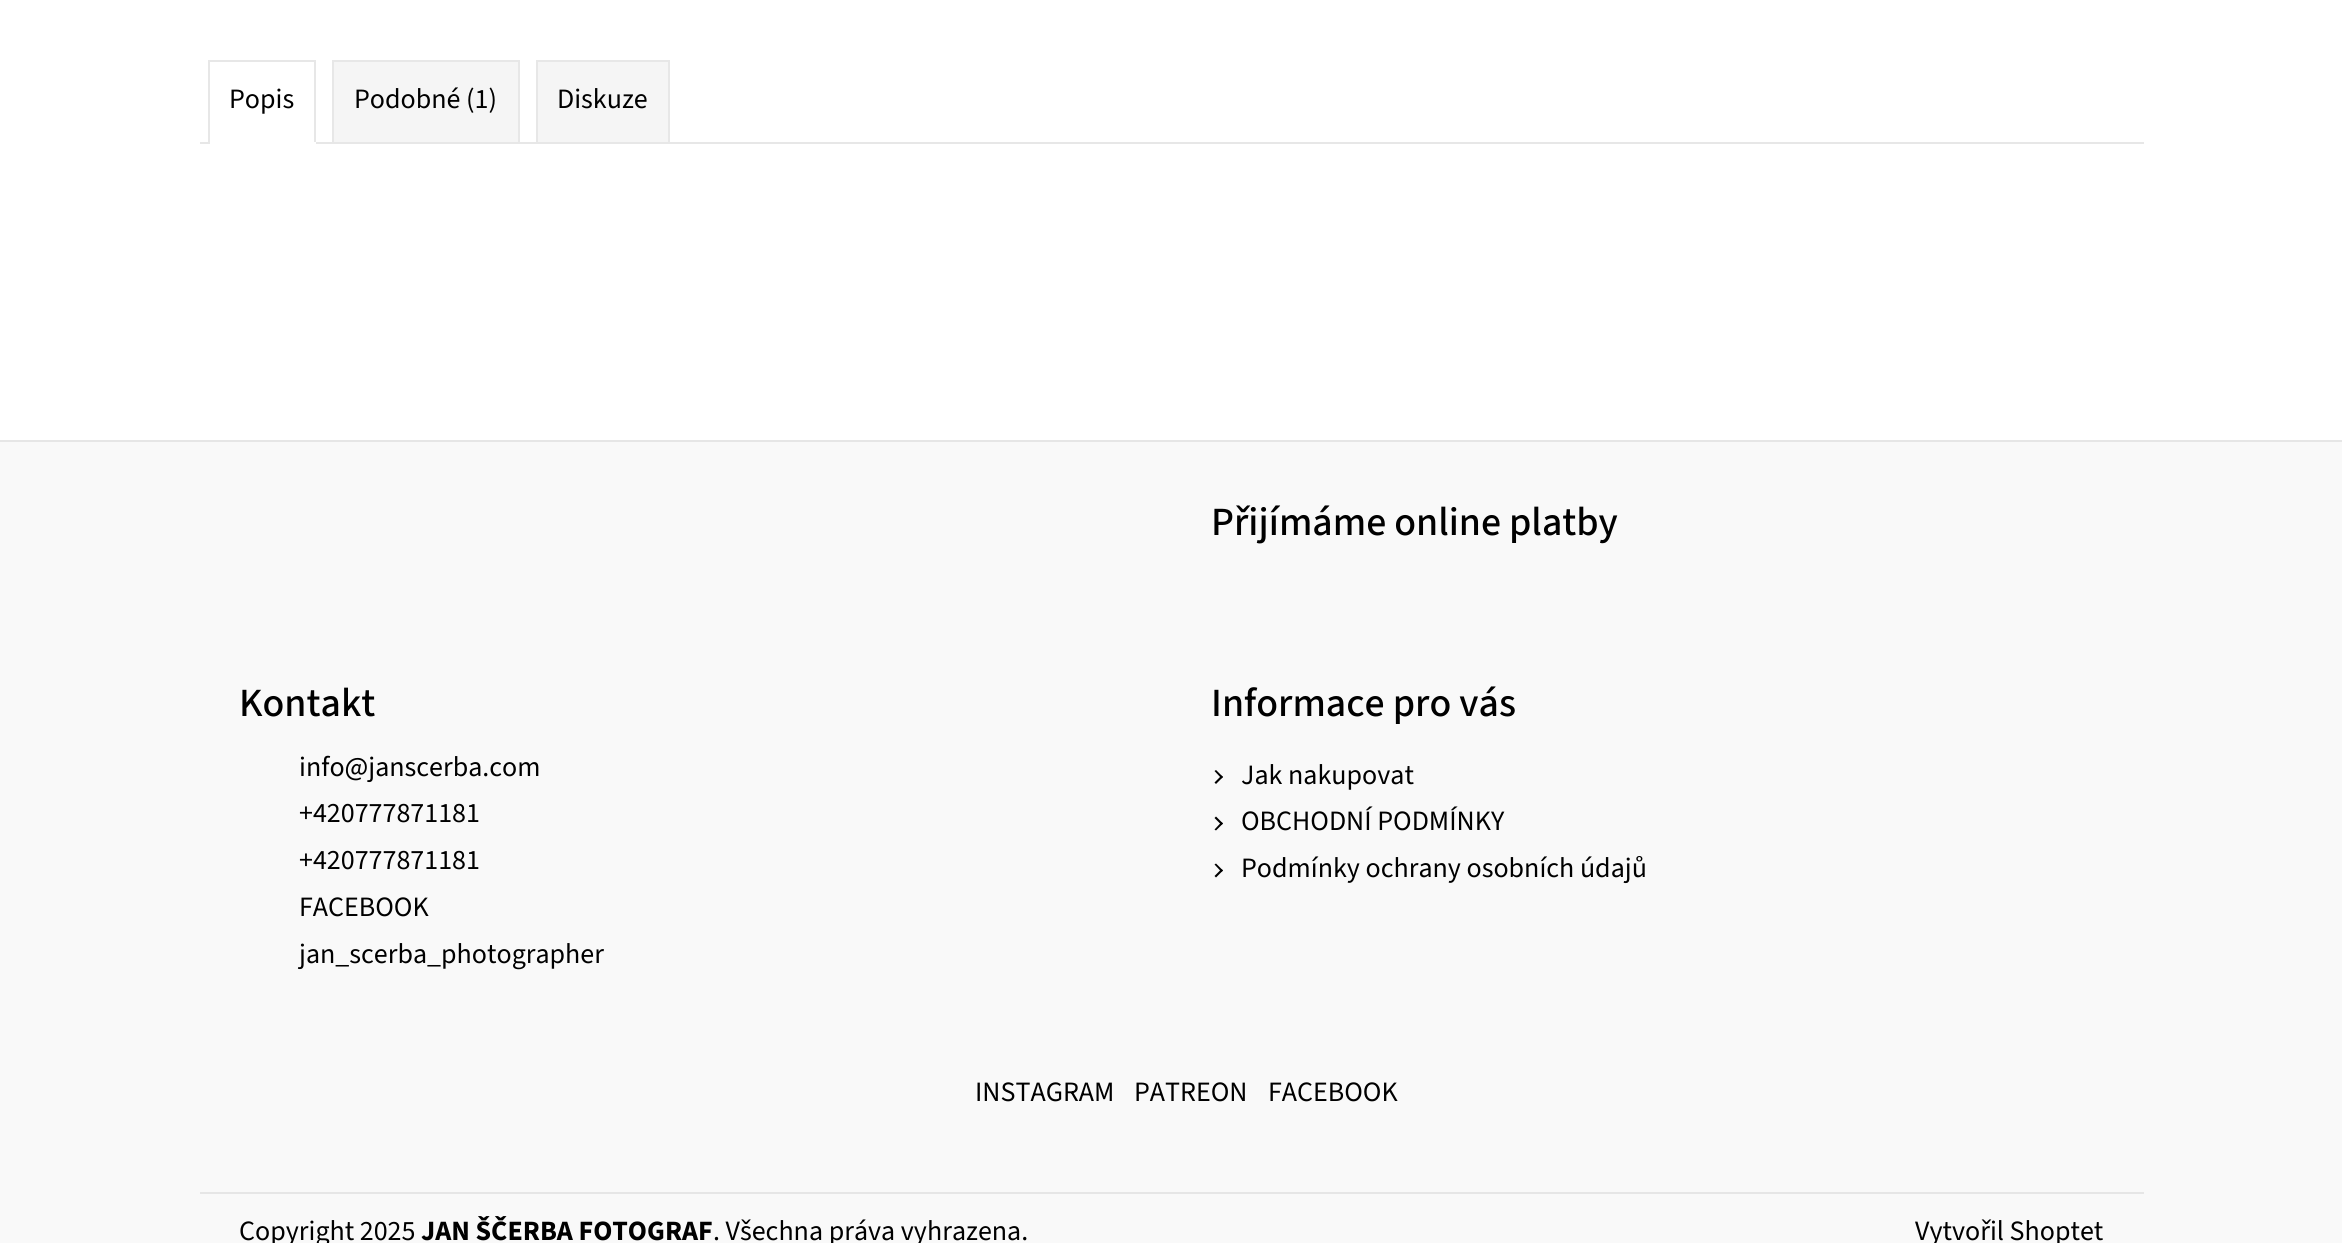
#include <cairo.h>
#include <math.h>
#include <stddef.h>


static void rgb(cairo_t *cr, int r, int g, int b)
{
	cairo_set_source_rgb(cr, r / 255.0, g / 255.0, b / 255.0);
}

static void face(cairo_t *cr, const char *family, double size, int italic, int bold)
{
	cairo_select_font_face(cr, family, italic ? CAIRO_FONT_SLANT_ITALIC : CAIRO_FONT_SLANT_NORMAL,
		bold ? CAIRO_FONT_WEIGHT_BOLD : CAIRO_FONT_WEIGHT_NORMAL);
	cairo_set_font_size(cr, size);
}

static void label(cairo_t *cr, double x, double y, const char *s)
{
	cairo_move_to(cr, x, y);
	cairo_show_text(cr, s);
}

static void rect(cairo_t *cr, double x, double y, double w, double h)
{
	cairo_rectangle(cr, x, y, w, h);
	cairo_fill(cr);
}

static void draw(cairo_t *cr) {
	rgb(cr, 255, 255, 255);
	cairo_paint(cr);
	rgb(cr, 231, 231, 231);
	rect(cr, 200, 142, 1944, 2);
	rect(cr, 208, 60, 108, 2);
	rect(cr, 314, 60, 2, 84);
	rgb(cr, 255, 255, 255);
	rect(cr, 208, 142, 108, 2);
	rgb(cr, 231, 231, 231);
	rect(cr, 208, 60, 2, 84);
	face(cr, "Source Sans 3", 28, 0, 0);
	rgb(cr, 0, 0, 0);
	label(cr, 229, 108, "Popis");
	rgb(cr, 245, 245, 245);
	cairo_rectangle(cr, 333, 61, 186, 82);
	cairo_fill_preserve(cr);
	rgb(cr, 231, 231, 231);
	cairo_stroke(cr);
	rgb(cr, 0, 0, 0);
	label(cr, 354, 108, "Podobné (1)");
	rgb(cr, 245, 245, 245);
	cairo_rectangle(cr, 537, 61, 132, 82);
	cairo_fill_preserve(cr);
	rgb(cr, 231, 231, 231);
	cairo_stroke(cr);
	rgb(cr, 0, 0, 0);
	label(cr, 557, 108, "Diskuze");
	rgb(cr, 249, 249, 249);
	rect(cr, 0, 442, 2342, 801);
	rgb(cr, 230, 230, 230);
	rect(cr, 0, 440, 2342, 2);
	face(cr, "Source Sans 3 Medium", 40, 0, 0);
	rgb(cr, 0, 0, 0);
	label(cr, 1211, 535, "Přijímáme online platby");
	label(cr, 239, 716, "Kontakt");
	face(cr, "Source Sans 3", 28, 0, 0);
	label(cr, 299, 776, "info@janscerba.com");
	label(cr, 299, 822, "+420777871181");
	label(cr, 299, 869, "+420777871181");
	label(cr, 299, 916, "FACEBOOK");
	label(cr, 299, 963, "jan_scerba_photographer");
	face(cr, "Source Sans 3 Medium", 40, 0, 0);
	label(cr, 1211, 716, "Informace pro vás");
	cairo_new_path(cr);
	cairo_move_to(cr, 1214.5, 771);
	cairo_line_to(cr, 1216, 770);
	cairo_line_to(cr, 1223, 777);
	cairo_line_to(cr, 1221.5, 778.5);
	cairo_close_path(cr);
	cairo_fill(cr);
	cairo_new_path(cr);
	cairo_move_to(cr, 1214.5, 782.5);
	cairo_line_to(cr, 1221.5, 775.5);
	cairo_line_to(cr, 1223, 777);
	cairo_line_to(cr, 1216, 784);
	cairo_close_path(cr);
	cairo_fill(cr);
	face(cr, "Source Sans 3", 28, 0, 0);
	label(cr, 1241, 784, "Jak nakupovat");
	cairo_new_path(cr);
	cairo_move_to(cr, 1214.5, 818);
	cairo_line_to(cr, 1216, 816.5);
	cairo_line_to(cr, 1223, 823.5);
	cairo_line_to(cr, 1221.5, 825);
	cairo_close_path(cr);
	cairo_fill(cr);
	cairo_new_path(cr);
	cairo_move_to(cr, 1214.5, 829.5);
	cairo_line_to(cr, 1221.5, 822);
	cairo_line_to(cr, 1223, 823.5);
	cairo_line_to(cr, 1216, 830.5);
	cairo_close_path(cr);
	cairo_fill(cr);
	label(cr, 1241, 830, "OBCHODNÍ PODMÍNKY");
	cairo_new_path(cr);
	cairo_move_to(cr, 1214.5, 864.5);
	cairo_line_to(cr, 1216, 863.5);
	cairo_line_to(cr, 1223, 870.5);
	cairo_line_to(cr, 1221.5, 872);
	cairo_close_path(cr);
	cairo_fill(cr);
	cairo_new_path(cr);
	cairo_move_to(cr, 1214.5, 876);
	cairo_line_to(cr, 1221.5, 869);
	cairo_line_to(cr, 1223, 870.5);
	cairo_line_to(cr, 1216, 877.5);
	cairo_close_path(cr);
	cairo_fill(cr);
	label(cr, 1241, 877, "Podmínky ochrany osobních údajů");
	label(cr, 975, 1101, "INSTAGRAM");
	label(cr, 1134, 1101, "PATREON");
	label(cr, 1268, 1101, "FACEBOOK");
	rgb(cr, 230, 230, 230);
	rect(cr, 200, 1192, 1944, 2);
	rgb(cr, 0, 0, 0);
	label(cr, 239, 1240, "Copyright 2025");
	face(cr, "Source Sans 3", 28, 0, 1);
	label(cr, 421, 1240, "JAN ŠČERBA FOTOGRAF");
	face(cr, "Source Sans 3", 28, 0, 0);
	label(cr, 713, 1240, ". Všechna práva vyhrazena.");
	label(cr, 1915, 1240, "Vytvořil Shoptet");
}

int main(void) {
	cairo_surface_t *surface = cairo_image_surface_create(CAIRO_FORMAT_RGB24, 2342, 1243);
	cairo_t *cr = cairo_create(surface);
	cairo_font_options_t *options = cairo_font_options_create();
	cairo_font_options_set_hint_metrics(options, CAIRO_HINT_METRICS_OFF);
	cairo_font_options_set_hint_style(options, CAIRO_HINT_STYLE_NONE);
	cairo_set_font_options(cr, options);
	cairo_set_miter_limit(cr, 4);
	draw(cr);
	cairo_surface_write_to_png(surface, "render.png");
	cairo_font_options_destroy(options);
	cairo_destroy(cr);
	cairo_surface_destroy(surface);
	return 0;
}
